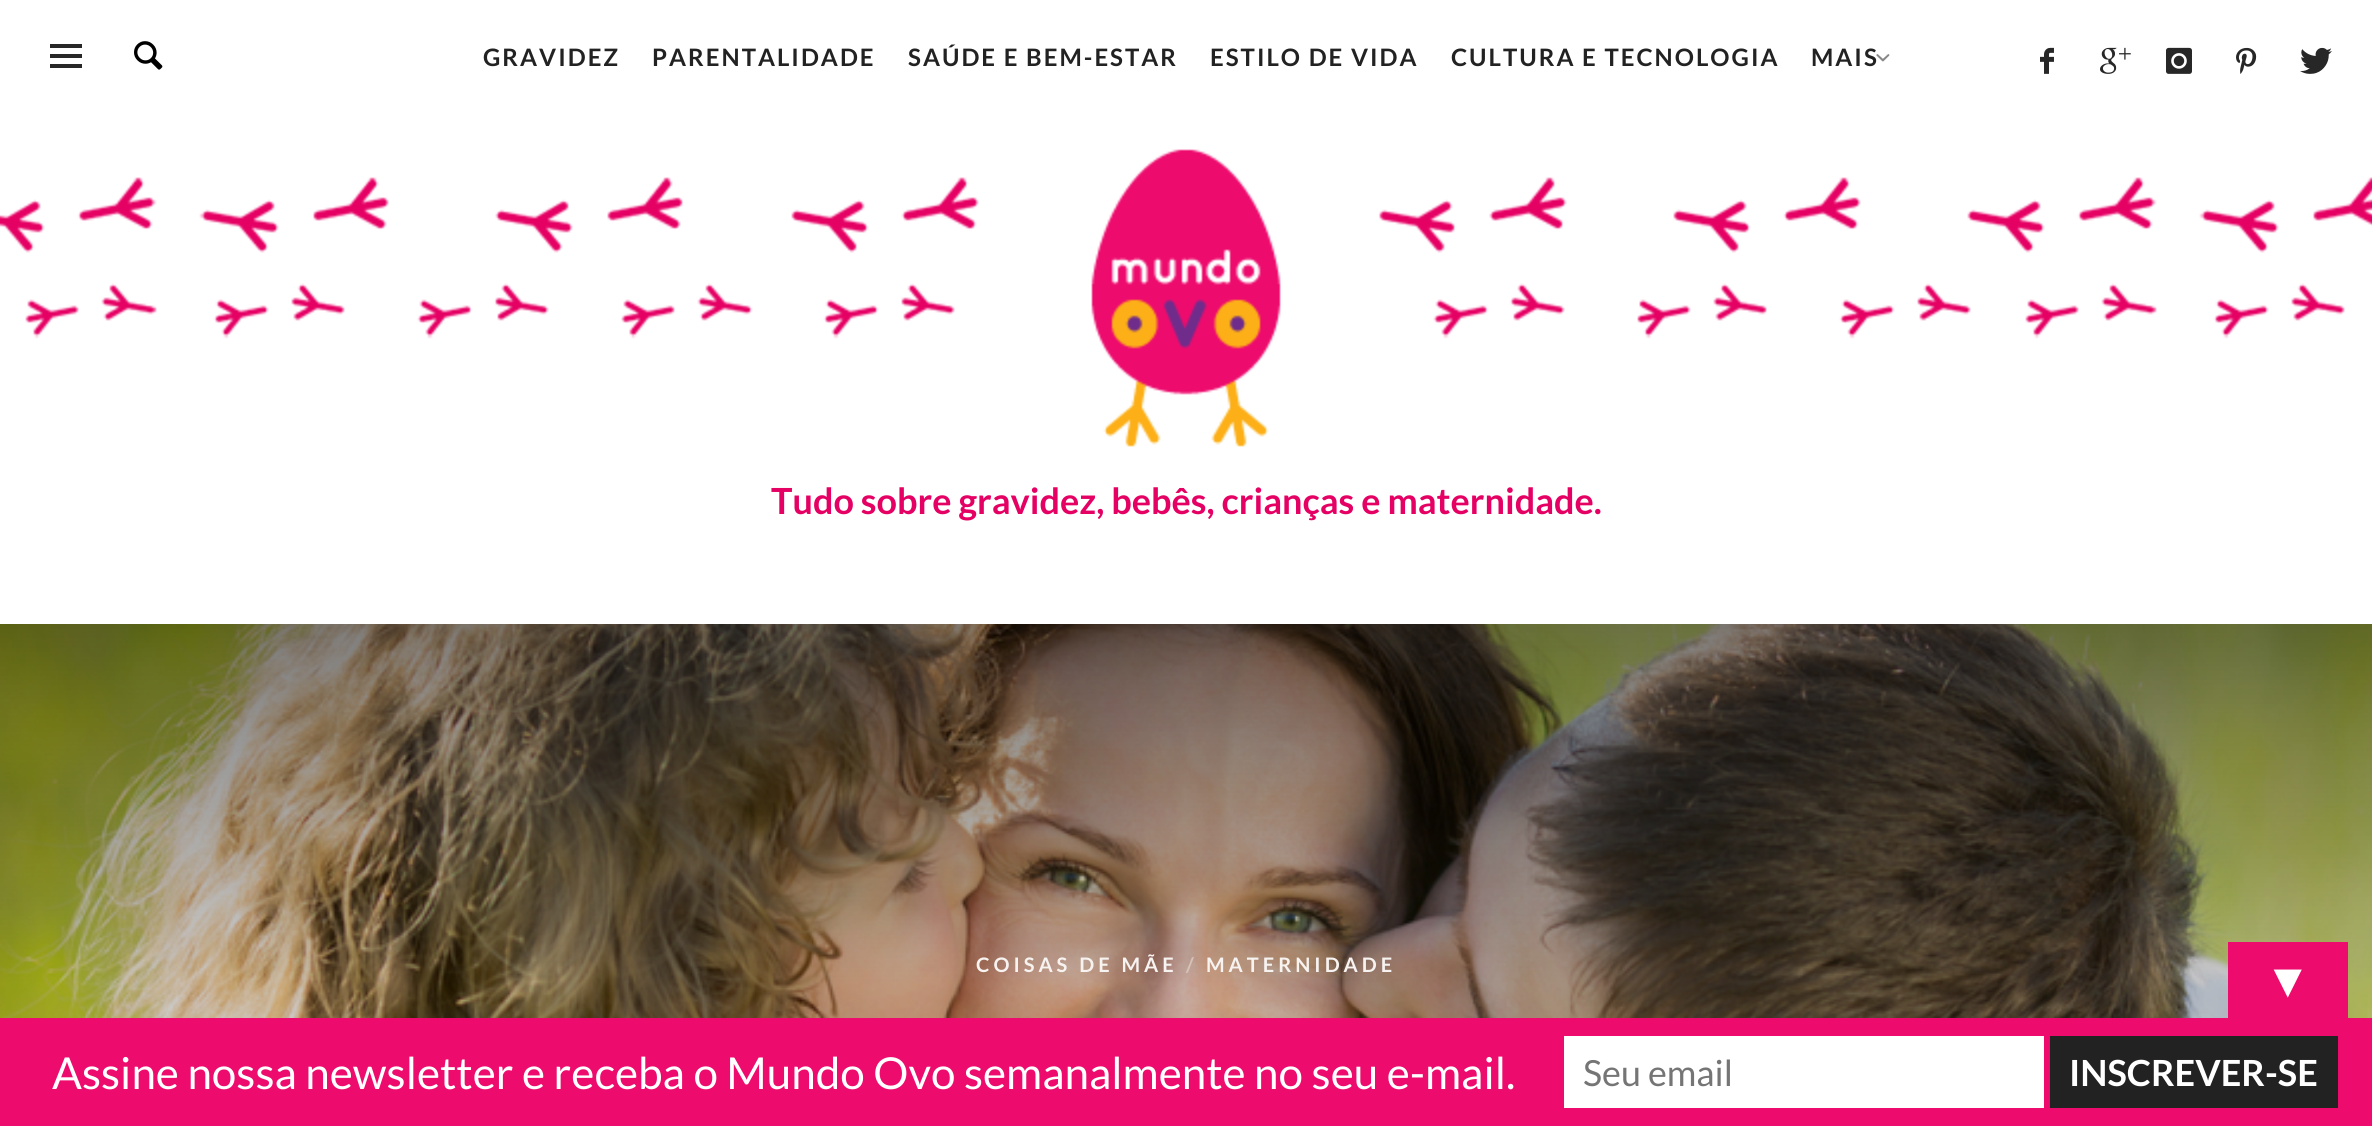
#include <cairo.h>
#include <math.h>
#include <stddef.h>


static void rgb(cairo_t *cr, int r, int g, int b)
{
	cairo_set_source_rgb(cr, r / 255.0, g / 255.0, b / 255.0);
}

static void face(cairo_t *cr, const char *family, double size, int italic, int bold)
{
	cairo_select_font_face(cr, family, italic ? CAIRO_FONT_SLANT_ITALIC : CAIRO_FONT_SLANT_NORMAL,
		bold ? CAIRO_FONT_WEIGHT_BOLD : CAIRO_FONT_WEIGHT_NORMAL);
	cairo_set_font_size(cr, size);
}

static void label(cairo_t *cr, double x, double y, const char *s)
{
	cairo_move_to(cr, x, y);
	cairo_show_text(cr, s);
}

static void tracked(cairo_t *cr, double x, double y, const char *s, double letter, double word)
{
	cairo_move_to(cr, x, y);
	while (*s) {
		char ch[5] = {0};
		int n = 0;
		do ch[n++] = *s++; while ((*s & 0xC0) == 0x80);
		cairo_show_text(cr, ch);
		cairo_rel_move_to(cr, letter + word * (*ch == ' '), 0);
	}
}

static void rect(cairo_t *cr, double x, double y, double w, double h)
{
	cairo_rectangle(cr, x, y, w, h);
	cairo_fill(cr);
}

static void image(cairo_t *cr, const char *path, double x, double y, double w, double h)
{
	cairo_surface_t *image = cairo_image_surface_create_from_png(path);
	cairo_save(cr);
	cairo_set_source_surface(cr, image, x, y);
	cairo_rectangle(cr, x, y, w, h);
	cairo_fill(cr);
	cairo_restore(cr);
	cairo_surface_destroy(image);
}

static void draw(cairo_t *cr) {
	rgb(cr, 255, 255, 255);
	cairo_paint(cr);
	image(cr, "image0.png", 0, 177, 2372, 162);
	rgb(cr, 39, 39, 39);
	rect(cr, 50, 54, 32, 4);
	rect(cr, 50, 44, 32, 4);
	rect(cr, 50, 64, 32, 4);
	image(cr, "image1.png", 134, 41, 29, 29);
	face(cr, "Lato", 24, 0, 1);
	rgb(cr, 34, 34, 34);
	tracked(cr, 483, 66, "GRAVIDEZ", 2, 0);
	tracked(cr, 652, 66, "PARENTALIDADE", 2, 0);
	tracked(cr, 908, 66, "SAÚDE E BEM-ESTAR", 2, 0);
	tracked(cr, 1210, 66, "ESTILO DE VIDA", 2, 0);
	tracked(cr, 1451, 66, "CULTURA E TECNOLOGIA", 2, 0);
	tracked(cr, 1811, 66, "MAIS", 2, 0);
	image(cr, "image2.png", 1876, 54, 14, 8);
	image(cr, "image3.png", 2040, 47, 14, 27);
	image(cr, "image4.png", 2100, 47, 31, 27);
	image(cr, "image5.png", 2166, 47, 26, 27);
	image(cr, "image6.png", 2236, 47, 21, 27);
	image(cr, "image7.png", 2300, 47, 32, 27);
	image(cr, "image8.png", 1091, 149, 190, 298);
	face(cr, "Lato", 36, 0, 1);
	rgb(cr, 229, 0, 100);
	label(cr, 771, 514, "Tudo sobre gravidez, bebês, crianças e maternidade.");
	image(cr, "image9.png", 0, 624, 2372, 394);
	face(cr, "Lato", 20, 0, 1);
	rgb(cr, 247, 243, 241);
	tracked(cr, 976, 972, "COISAS DE MÃE", 4, 0);
	rgb(cr, 213, 194, 186);
	tracked(cr, 1186, 972, "/", 4, 0);
	rgb(cr, 247, 243, 241);
	tracked(cr, 1206, 972, "MATERNIDADE", 4, 0);
	rgb(cr, 237, 12, 110);
	rect(cr, 2228, 942, 120, 76);
	face(cr, "Liberation Serif", 48, 0, 0);
	rgb(cr, 255, 255, 255);
	label(cr, 2264, 997, "▼");
	rgb(cr, 237, 12, 110);
	rect(cr, 0, 1018, 2372, 108);
	face(cr, "Lato", 44, 0, 0);
	rgb(cr, 255, 255, 255);
	label(cr, 52, 1089, "Assine nossa newsletter e receba o Mundo Ovo semanalmente no seu e-mail.");
	rect(cr, 1564, 1036, 480, 72);
	face(cr, "Lato", 36, 0, 0);
	rgb(cr, 117, 117, 117);
	label(cr, 1583, 1086, "Seu email");
	rgb(cr, 34, 34, 34);
	rect(cr, 2050, 1036, 288, 72);
	face(cr, "Lato", 36, 0, 1);
	rgb(cr, 255, 255, 255);
	label(cr, 2069, 1086, "INSCREVER-SE");
}

int main(void) {
	cairo_surface_t *surface = cairo_image_surface_create(CAIRO_FORMAT_RGB24, 2372, 1126);
	cairo_t *cr = cairo_create(surface);
	cairo_font_options_t *options = cairo_font_options_create();
	cairo_font_options_set_hint_metrics(options, CAIRO_HINT_METRICS_OFF);
	cairo_font_options_set_hint_style(options, CAIRO_HINT_STYLE_NONE);
	cairo_set_font_options(cr, options);
	cairo_set_miter_limit(cr, 4);
	draw(cr);
	cairo_surface_write_to_png(surface, "render.png");
	cairo_font_options_destroy(options);
	cairo_destroy(cr);
	cairo_surface_destroy(surface);
	return 0;
}
